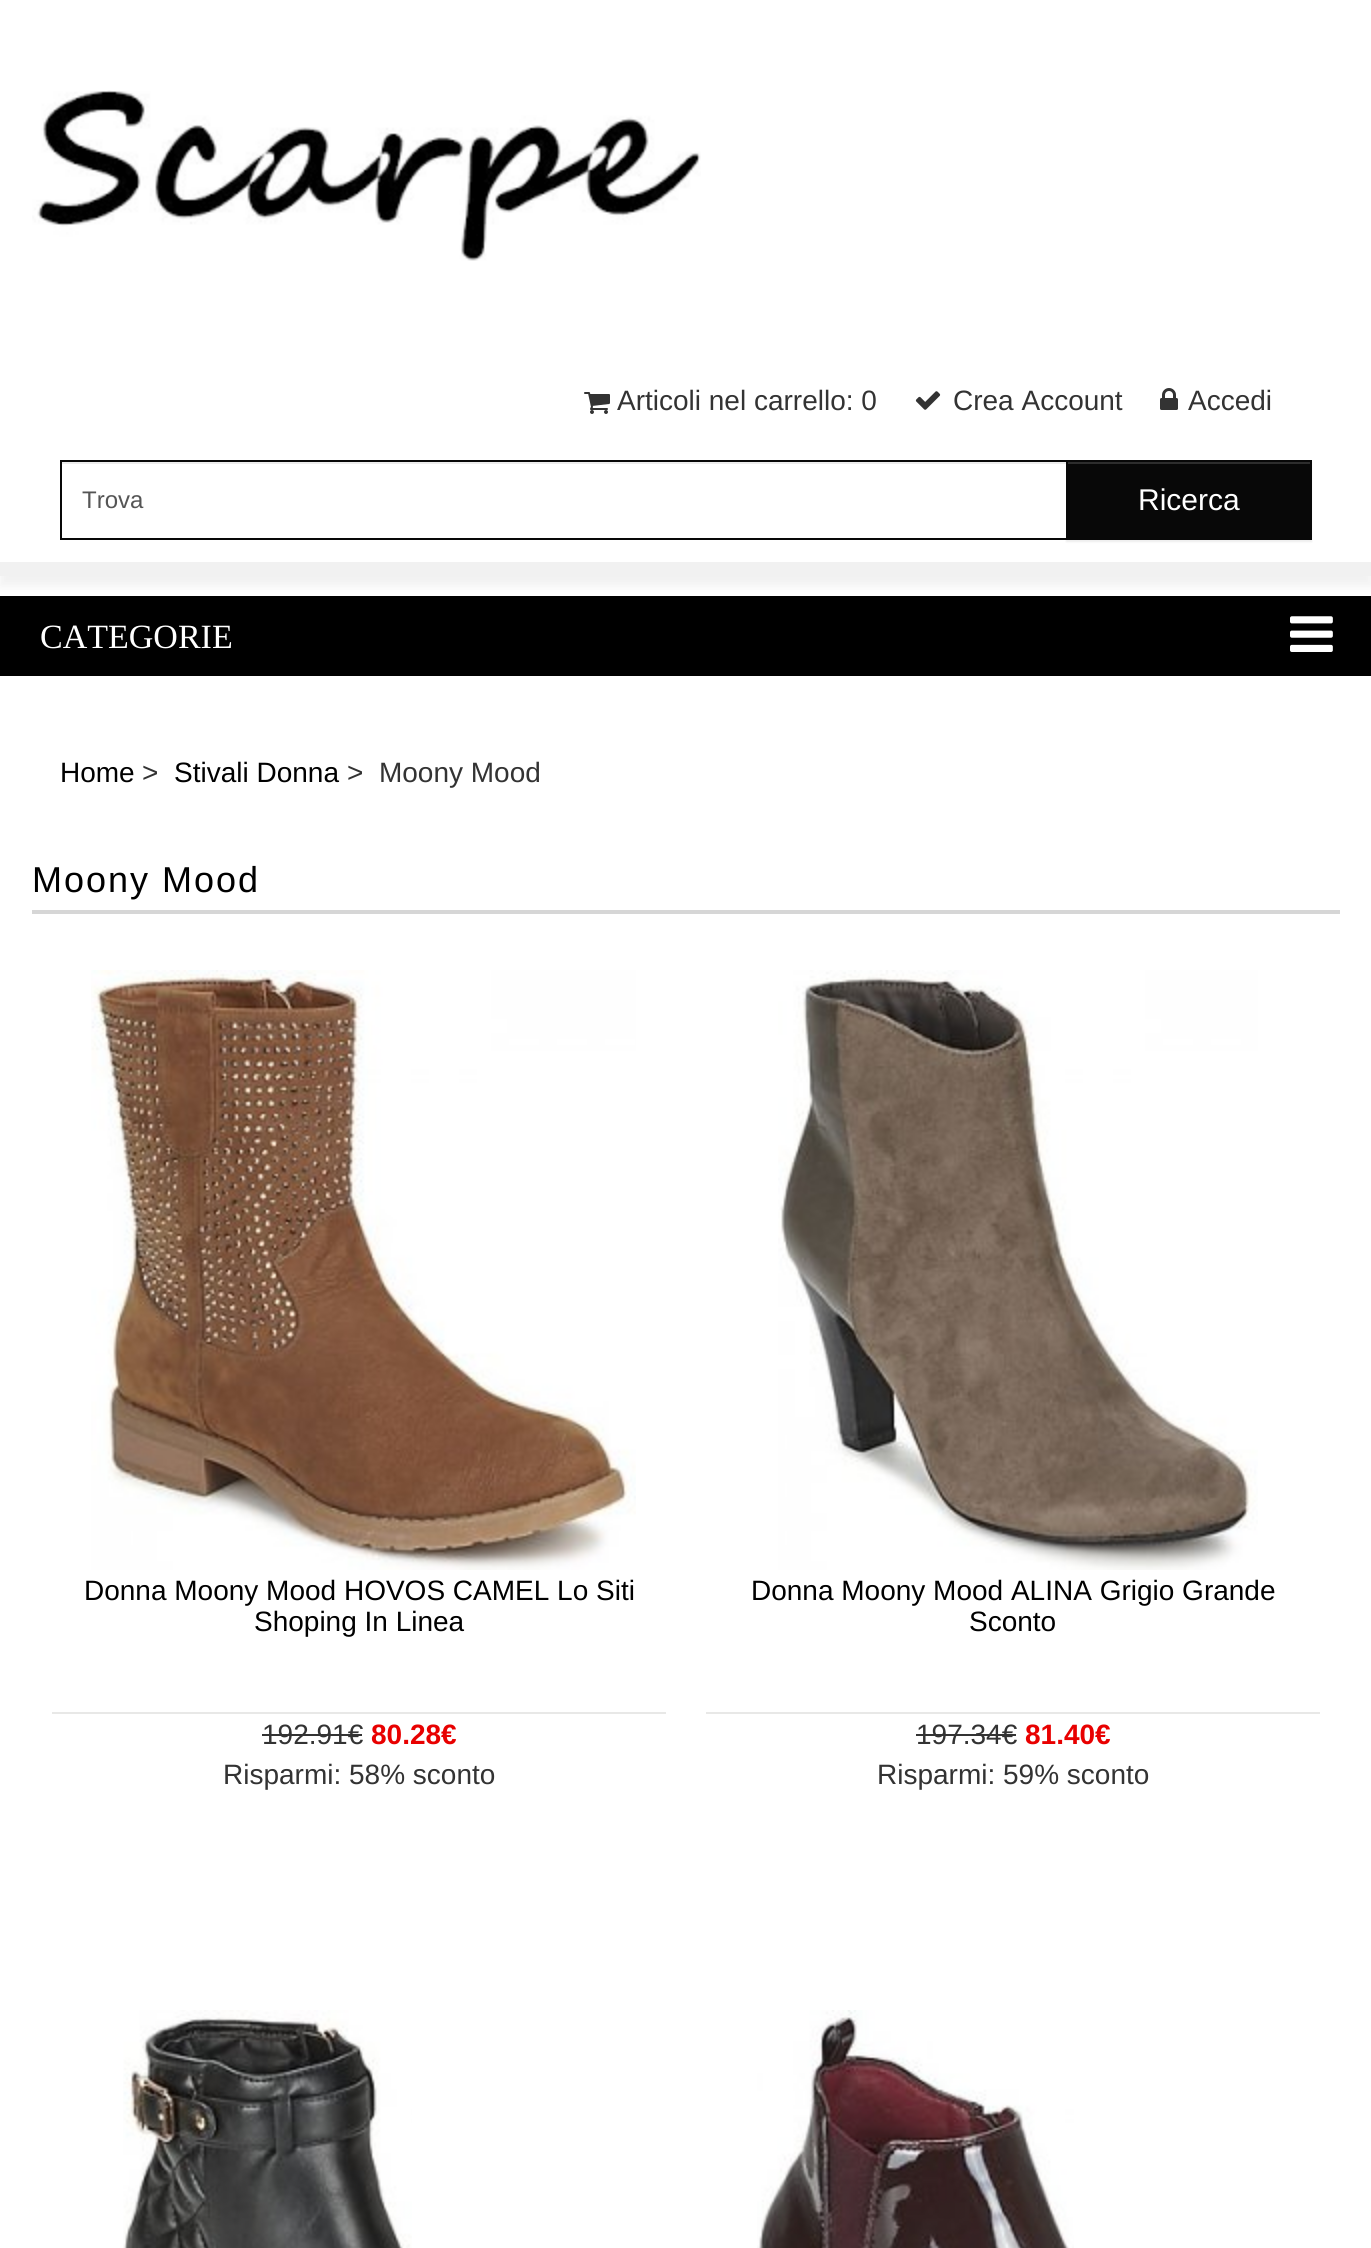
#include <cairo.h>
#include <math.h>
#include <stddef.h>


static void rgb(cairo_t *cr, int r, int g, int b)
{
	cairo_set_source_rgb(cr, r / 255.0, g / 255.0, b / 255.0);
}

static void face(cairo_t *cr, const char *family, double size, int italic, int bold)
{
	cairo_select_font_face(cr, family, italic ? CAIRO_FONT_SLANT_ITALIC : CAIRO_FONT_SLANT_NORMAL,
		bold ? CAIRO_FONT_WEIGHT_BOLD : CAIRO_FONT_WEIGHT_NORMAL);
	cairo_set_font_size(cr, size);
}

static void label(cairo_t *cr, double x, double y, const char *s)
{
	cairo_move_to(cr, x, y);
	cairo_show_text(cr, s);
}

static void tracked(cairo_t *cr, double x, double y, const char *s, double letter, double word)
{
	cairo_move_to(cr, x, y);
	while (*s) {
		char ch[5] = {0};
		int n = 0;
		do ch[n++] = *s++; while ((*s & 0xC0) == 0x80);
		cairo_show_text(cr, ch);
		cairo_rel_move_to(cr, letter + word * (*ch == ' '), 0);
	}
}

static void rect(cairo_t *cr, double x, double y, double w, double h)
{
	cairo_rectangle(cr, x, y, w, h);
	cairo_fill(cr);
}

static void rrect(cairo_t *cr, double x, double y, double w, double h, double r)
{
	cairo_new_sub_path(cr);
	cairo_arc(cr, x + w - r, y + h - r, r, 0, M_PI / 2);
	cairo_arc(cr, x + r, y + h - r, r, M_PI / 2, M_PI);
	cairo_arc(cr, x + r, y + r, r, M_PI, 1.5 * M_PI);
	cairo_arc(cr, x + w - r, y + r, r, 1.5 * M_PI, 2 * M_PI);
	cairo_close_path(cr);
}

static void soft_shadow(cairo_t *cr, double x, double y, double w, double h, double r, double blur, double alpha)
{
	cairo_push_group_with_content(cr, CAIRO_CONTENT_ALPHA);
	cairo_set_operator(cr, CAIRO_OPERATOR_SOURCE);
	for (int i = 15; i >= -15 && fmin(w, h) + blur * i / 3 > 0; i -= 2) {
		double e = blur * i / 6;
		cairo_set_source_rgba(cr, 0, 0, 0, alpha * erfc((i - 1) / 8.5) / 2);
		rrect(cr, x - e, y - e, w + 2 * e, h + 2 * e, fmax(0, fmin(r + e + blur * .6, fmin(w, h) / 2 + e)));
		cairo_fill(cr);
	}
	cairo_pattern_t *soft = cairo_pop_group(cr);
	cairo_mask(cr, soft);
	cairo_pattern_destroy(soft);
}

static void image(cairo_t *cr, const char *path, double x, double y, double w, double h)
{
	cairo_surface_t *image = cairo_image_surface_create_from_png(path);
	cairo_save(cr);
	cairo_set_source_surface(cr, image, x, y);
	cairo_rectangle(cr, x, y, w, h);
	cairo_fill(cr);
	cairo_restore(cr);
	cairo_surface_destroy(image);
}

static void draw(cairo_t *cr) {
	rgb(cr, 255, 255, 255);
	cairo_paint(cr);
	cairo_save(cr);
	cairo_rectangle(cr, 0, 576, 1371, 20);
	cairo_clip(cr);
	rgb(cr, 241, 241, 241);
	soft_shadow(cr, 0, 10, 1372, 576, 0, 5, 1);
	cairo_restore(cr);
	rgb(cr, 241, 241, 241);
	rect(cr, 0, 562, 1371, 14);
	image(cr, "image0.png", 32, 90, 669, 171);
	image(cr, "image1.png", 584, 392, 26, 22);
	face(cr, "Liberation Sans", 28, 0, 0);
	rgb(cr, 51, 51, 51);
	label(cr, 617, 410, "Articoli nel carrello: 0");
	image(cr, "image2.png", 915, 391, 26, 19);
	label(cr, 953, 410, "Crea Account");
	image(cr, "image3.png", 1160, 388, 18, 22);
	label(cr, 1188, 410, "Accedi");
	rgb(cr, 0, 0, 0);
	soft_shadow(cr, 1066, 462, 246, 80, 0, 1, 0.07);
	rgb(cr, 255, 255, 255);
	rect(cr, 1065, 464, 1, 74);
	rgb(cr, 236, 236, 236);
	rect(cr, 62, 462, 1004, 2);
	cairo_rectangle(cr, 61, 461, 1006, 78);
	rgb(cr, 8, 8, 8);
	cairo_stroke(cr);
	face(cr, "Liberation Sans", 24, 0, 0);
	rgb(cr, 85, 85, 85);
	label(cr, 82, 508, "Trova");
	rgb(cr, 8, 8, 8);
	rect(cr, 1068, 460, 244, 80);
	rgb(cr, 45, 45, 45);
	rect(cr, 1068, 462, 242, 2);
	face(cr, "Liberation Sans", 30, 0, 0);
	rgb(cr, 255, 255, 255);
	label(cr, 1138, 510, "Ricerca");
	rgb(cr, 0, 0, 0);
	rect(cr, 0, 596, 1371, 80);
	face(cr, "Liberation Serif", 34, 0, 0);
	rgb(cr, 255, 255, 255);
	label(cr, 40, 648, "CATEGORIE");
	image(cr, "image4.png", 1290, 616, 43, 36);
	face(cr, "Liberation Sans", 28, 0, 0);
	rgb(cr, 0, 0, 0);
	label(cr, 60, 782, "Home");
	rgb(cr, 51, 51, 51);
	label(cr, 142, 782, ">");
	rgb(cr, 0, 0, 0);
	label(cr, 174, 782, "Stivali Donna");
	rgb(cr, 51, 51, 51);
	label(cr, 347, 782, ">  Moony Mood");
	rgb(cr, 214, 214, 214);
	rect(cr, 32, 910, 1308, 4);
	face(cr, "Liberation Sans", 36, 0, 0);
	rgb(cr, 0, 0, 0);
	tracked(cr, 32, 892, "Moony Mood", 2, 0);
	image(cr, "image5.png", 91, 970, 545, 600);
	rgb(cr, 232, 232, 231);
	rect(cr, 52, 1712, 614, 2);
	face(cr, "Liberation Sans", 28, 0, 0);
	rgb(cr, 0, 0, 0);
	label(cr, 84, 1600, "Donna Moony Mood HOVOS CAMEL Lo Siti");
	label(cr, 254, 1631, "Shoping In Linea");
	rgb(cr, 51, 51, 51);
	label(cr, 262, 1744, "192.91€");
	rect(cr, 262, 1734, 100, 2);
	face(cr, "Liberation Sans", 28, 0, 1);
	rgb(cr, 232, 0, 0);
	label(cr, 371, 1744, "80.28€");
	face(cr, "Liberation Sans", 28, 0, 0);
	rgb(cr, 51, 51, 51);
	label(cr, 223, 1784, "Risparmi: 58% sconto");
	image(cr, "image6.png", 778, 970, 480, 600);
	rgb(cr, 232, 232, 231);
	rect(cr, 706, 1712, 614, 2);
	rgb(cr, 0, 0, 0);
	label(cr, 751, 1600, "Donna Moony Mood ALINA Grigio Grande");
	label(cr, 969, 1631, "Sconto");
	rgb(cr, 51, 51, 51);
	label(cr, 916, 1744, "197.34€");
	rect(cr, 916, 1734, 100, 2);
	face(cr, "Liberation Sans", 28, 0, 1);
	rgb(cr, 232, 0, 0);
	label(cr, 1025, 1744, "81.40€");
	face(cr, "Liberation Sans", 28, 0, 0);
	rgb(cr, 51, 51, 51);
	label(cr, 877, 1784, "Risparmi: 59% sconto");
	image(cr, "image7.png", 123, 2010, 289, 238);
	image(cr, "image8.png", 757, 2010, 317, 238);
}

int main(void) {
	cairo_surface_t *surface = cairo_image_surface_create(CAIRO_FORMAT_RGB24, 1371, 2248);
	cairo_t *cr = cairo_create(surface);
	cairo_font_options_t *options = cairo_font_options_create();
	cairo_font_options_set_hint_metrics(options, CAIRO_HINT_METRICS_OFF);
	cairo_font_options_set_hint_style(options, CAIRO_HINT_STYLE_NONE);
	cairo_set_font_options(cr, options);
	cairo_set_miter_limit(cr, 4);
	draw(cr);
	cairo_surface_write_to_png(surface, "render.png");
	cairo_font_options_destroy(options);
	cairo_destroy(cr);
	cairo_surface_destroy(surface);
	return 0;
}
